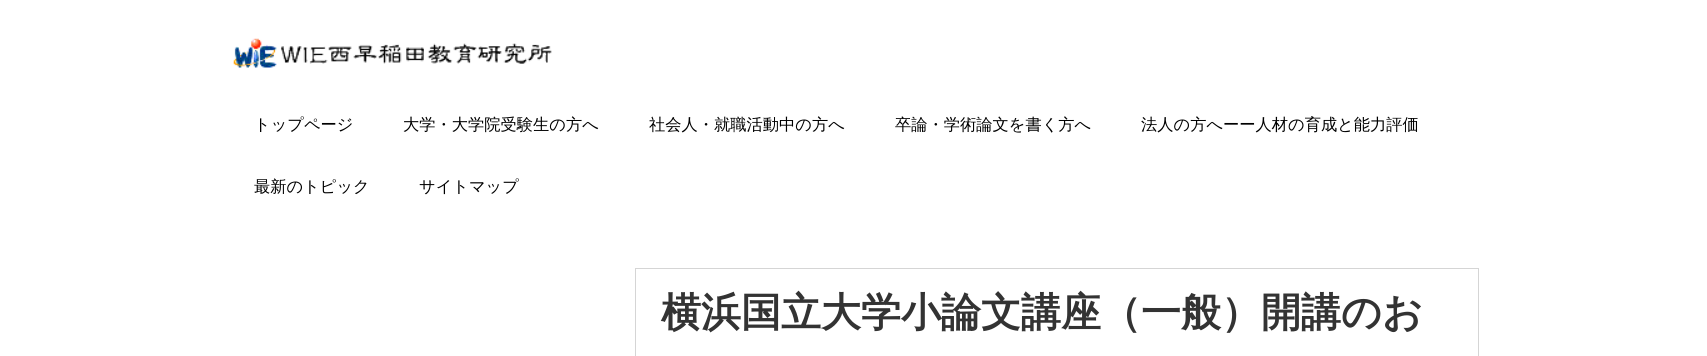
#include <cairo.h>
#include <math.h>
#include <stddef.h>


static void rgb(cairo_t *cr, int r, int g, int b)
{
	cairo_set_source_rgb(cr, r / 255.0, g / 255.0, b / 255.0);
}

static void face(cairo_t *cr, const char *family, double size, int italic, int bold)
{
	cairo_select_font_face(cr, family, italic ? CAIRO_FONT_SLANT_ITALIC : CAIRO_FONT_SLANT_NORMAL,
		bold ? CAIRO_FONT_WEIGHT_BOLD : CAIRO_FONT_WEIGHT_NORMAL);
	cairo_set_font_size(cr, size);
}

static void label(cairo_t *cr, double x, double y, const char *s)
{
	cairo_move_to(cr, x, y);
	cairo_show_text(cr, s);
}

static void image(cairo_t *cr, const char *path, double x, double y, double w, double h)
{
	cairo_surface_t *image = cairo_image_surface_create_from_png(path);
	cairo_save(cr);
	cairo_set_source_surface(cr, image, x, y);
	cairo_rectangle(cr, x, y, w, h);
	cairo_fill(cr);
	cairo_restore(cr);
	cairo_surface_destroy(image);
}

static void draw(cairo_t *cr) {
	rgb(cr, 255, 255, 255);
	cairo_paint(cr);
	image(cr, "image0.png", 233, 38, 319, 30);
	face(cr, "WenQuanYi Zen Hei Medium", 16.25, 0, 0);
	rgb(cr, 0, 0, 0);
	label(cr, 254, 130, "トップページ");
	label(cr, 403, 130, "大学・大学院受験生の方へ");
	label(cr, 649, 130, "社会人・就職活動中の方へ");
	label(cr, 895, 130, "卒論・学術論文を書く方へ");
	label(cr, 1141, 130, "法人の方へーー人材の育成と能力評価");
	label(cr, 254, 192, "最新のトピック");
	label(cr, 419, 192, "サイトマップ");
	cairo_rectangle(cr, 635.5, 268.5, 843, 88);
	rgb(cr, 213, 213, 213);
	cairo_set_line_width(cr, 1);
	cairo_stroke(cr);
	face(cr, "WenQuanYi Zen Hei", 40, 0, 1);
	rgb(cr, 51, 51, 51);
	label(cr, 661, 326, "横浜国立大学小論文講座（一般）開講のお");
}

int main(void) {
	cairo_surface_t *surface = cairo_image_surface_create(CAIRO_FORMAT_RGB24, 1707, 356);
	cairo_t *cr = cairo_create(surface);
	cairo_font_options_t *options = cairo_font_options_create();
	cairo_font_options_set_hint_metrics(options, CAIRO_HINT_METRICS_OFF);
	cairo_font_options_set_hint_style(options, CAIRO_HINT_STYLE_NONE);
	cairo_set_font_options(cr, options);
	cairo_set_miter_limit(cr, 4);
	draw(cr);
	cairo_surface_write_to_png(surface, "render.png");
	cairo_font_options_destroy(options);
	cairo_destroy(cr);
	cairo_surface_destroy(surface);
	return 0;
}
